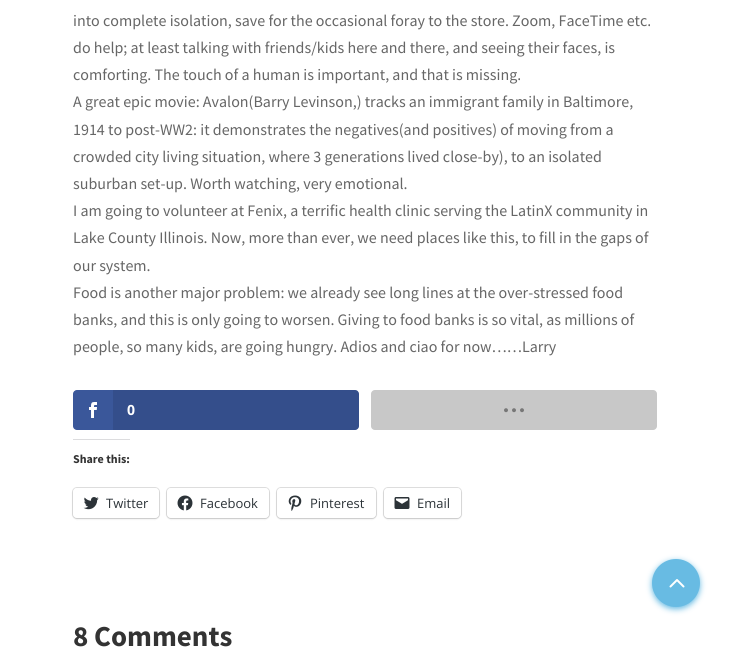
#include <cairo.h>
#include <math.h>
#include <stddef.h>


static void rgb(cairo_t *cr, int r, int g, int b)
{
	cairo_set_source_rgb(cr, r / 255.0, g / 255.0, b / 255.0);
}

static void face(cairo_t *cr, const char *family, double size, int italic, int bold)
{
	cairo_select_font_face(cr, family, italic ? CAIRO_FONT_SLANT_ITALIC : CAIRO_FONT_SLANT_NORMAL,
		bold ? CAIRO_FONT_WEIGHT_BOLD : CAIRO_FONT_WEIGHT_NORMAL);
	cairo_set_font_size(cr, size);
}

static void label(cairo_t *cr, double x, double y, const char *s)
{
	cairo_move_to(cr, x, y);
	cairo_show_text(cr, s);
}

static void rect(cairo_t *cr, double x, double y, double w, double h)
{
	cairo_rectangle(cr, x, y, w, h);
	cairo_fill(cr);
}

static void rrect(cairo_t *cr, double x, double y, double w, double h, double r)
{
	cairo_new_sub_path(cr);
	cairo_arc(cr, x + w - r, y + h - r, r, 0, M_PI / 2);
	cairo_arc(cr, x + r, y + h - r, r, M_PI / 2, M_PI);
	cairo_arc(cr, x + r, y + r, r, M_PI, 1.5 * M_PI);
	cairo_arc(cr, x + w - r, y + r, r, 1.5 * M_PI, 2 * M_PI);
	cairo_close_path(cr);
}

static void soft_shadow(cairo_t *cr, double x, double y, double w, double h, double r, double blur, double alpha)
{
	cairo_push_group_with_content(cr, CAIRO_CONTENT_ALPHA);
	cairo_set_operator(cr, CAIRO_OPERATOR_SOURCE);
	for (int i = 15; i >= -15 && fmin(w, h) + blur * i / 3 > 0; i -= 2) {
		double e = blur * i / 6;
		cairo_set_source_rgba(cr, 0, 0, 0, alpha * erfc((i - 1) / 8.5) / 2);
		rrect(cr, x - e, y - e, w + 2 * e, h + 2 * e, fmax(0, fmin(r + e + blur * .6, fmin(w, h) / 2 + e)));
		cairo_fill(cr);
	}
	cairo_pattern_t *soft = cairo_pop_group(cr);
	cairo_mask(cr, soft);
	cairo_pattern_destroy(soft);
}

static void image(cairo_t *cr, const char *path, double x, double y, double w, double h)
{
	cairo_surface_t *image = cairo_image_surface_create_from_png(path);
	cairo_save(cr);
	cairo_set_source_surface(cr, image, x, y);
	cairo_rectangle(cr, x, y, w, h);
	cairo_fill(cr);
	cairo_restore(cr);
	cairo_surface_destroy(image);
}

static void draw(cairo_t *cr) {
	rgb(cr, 255, 255, 255);
	cairo_paint(cr);
	face(cr, "Source Sans Pro", 16, 0, 0);
	rgb(cr, 102, 102, 102);
	label(cr, 73, 26, "into complete isolation, save for the occasional foray to the store. Zoom, FaceTime etc.");
	label(cr, 73, 53, "do help; at least talking with friends/kids here and there, and seeing their faces, is");
	label(cr, 73, 80, "comforting. The touch of a human is important, and that is missing.");
	label(cr, 73, 107, "A great epic movie: Avalon(Barry Levinson,) tracks an immigrant family in Baltimore,");
	label(cr, 73, 135, "1914 to post-WW2: it demonstrates the negatives(and positives) of moving from a");
	label(cr, 73, 162, "crowded city living situation, where 3 generations lived close-by), to an isolated");
	label(cr, 73, 189, "suburban set-up. Worth watching, very emotional.");
	label(cr, 73, 216, "I am going to volunteer at Fenix, a terrific health clinic serving the LatinX community in");
	label(cr, 73, 243, "Lake County Illinois. Now, more than ever, we need places like this, to fill in the gaps of");
	label(cr, 73, 271, "our system.");
	label(cr, 73, 298, "Food is another major problem: we already see long lines at the over-stressed food");
	label(cr, 73, 325, "banks, and this is only going to worsen. Giving to food banks is so vital, as millions of");
	label(cr, 73, 352, "people, so many kids, are going hungry. Adios and ciao for now……Larry");
	rgb(cr, 58, 87, 154);
	rrect(cr, 73, 390, 286, 40, 4);
	cairo_fill(cr);
	image(cr, "image0.png", 89, 402, 8, 16);
	cairo_set_source_rgba(cr, 0, 0, 0, 0.1);
	cairo_new_path(cr);
	cairo_move_to(cr, 113, 390);
	cairo_line_to(cr, 355, 390);
	cairo_curve_to(cr, 357, 390, 359, 392, 359, 394);
	cairo_line_to(cr, 359, 426);
	cairo_curve_to(cr, 359, 428, 357, 430, 355, 430);
	cairo_line_to(cr, 113, 430);
	cairo_close_path(cr);
	cairo_fill(cr);
	face(cr, "Open Sans", 14, 0, 1);
	rgb(cr, 255, 255, 255);
	label(cr, 127, 415, "0");
	rgb(cr, 222, 222, 222);
	rrect(cr, 371, 390, 286, 40, 4);
	cairo_fill(cr);
	cairo_set_source_rgba(cr, 0, 0, 0, 0.1);
	rrect(cr, 371, 390, 286, 40, 4);
	cairo_fill(cr);
	image(cr, "image1.png", 504, 408, 20, 5);
	rgb(cr, 220, 220, 222);
	rect(cr, 73, 439, 57, 1);
	face(cr, "Source Sans Pro", 12, 0, 1);
	rgb(cr, 51, 51, 51);
	label(cr, 73, 463, "Share this:");
	rrect(cr, 72.5, 487.5, 87, 31, 4.5);
	rgb(cr, 224, 224, 224);
	cairo_set_line_width(cr, 1);
	cairo_stroke(cr);
	rgb(cr, 0, 0, 0);
	soft_shadow(cr, 73, 489, 86, 30, 4, 1, 0.12);
	rgb(cr, 255, 255, 255);
	rrect(cr, 73, 488, 86, 30, 4);
	cairo_fill(cr);
	image(cr, "image2.png", 83, 497, 16, 13);
	face(cr, "Open Sans", 13, 0, 0);
	rgb(cr, 44, 51, 56);
	label(cr, 106, 508, "Twitter");
	rrect(cr, 166.5, 487.5, 103, 31, 4.5);
	rgb(cr, 224, 224, 224);
	cairo_stroke(cr);
	rgb(cr, 0, 0, 0);
	soft_shadow(cr, 167, 489, 102, 30, 4, 1, 0.12);
	rgb(cr, 255, 255, 255);
	rrect(cr, 167, 488, 102, 30, 4);
	cairo_fill(cr);
	image(cr, "image3.png", 177, 495, 16, 16);
	rgb(cr, 44, 51, 56);
	label(cr, 200, 508, "Facebook");
	rrect(cr, 276.5, 487.5, 100, 31, 4.5);
	rgb(cr, 224, 224, 224);
	cairo_stroke(cr);
	rgb(cr, 0, 0, 0);
	soft_shadow(cr, 277, 489, 99, 30, 4, 1, 0.12);
	rgb(cr, 255, 255, 255);
	rrect(cr, 277, 488, 99, 30, 4);
	cairo_fill(cr);
	image(cr, "image4.png", 288, 495, 14, 16);
	rgb(cr, 44, 51, 56);
	label(cr, 310, 508, "Pinterest");
	rrect(cr, 383.5, 487.5, 78, 31, 4.5);
	rgb(cr, 224, 224, 224);
	cairo_stroke(cr);
	rgb(cr, 0, 0, 0);
	soft_shadow(cr, 384, 489, 77, 30, 4, 1, 0.12);
	rgb(cr, 255, 255, 255);
	rrect(cr, 384, 488, 77, 30, 4);
	cairo_fill(cr);
	image(cr, "image5.png", 394, 497, 16, 12);
	rgb(cr, 44, 51, 56);
	label(cr, 417, 508, "Email");
	face(cr, "Source Sans Pro", 29, 0, 1);
	rgb(cr, 51, 51, 51);
	label(cr, 73, 646, "8 Comments");
	rgb(cr, 104, 187, 227);
	soft_shadow(cr, 652, 561, 48, 48, 24, 3, 1);
	rgb(cr, 104, 187, 227);
	cairo_arc(cr, 676, 583, 24, 0, 2 * M_PI);
	cairo_fill(cr);
	image(cr, "image6.png", 669, 579, 16, 9);
}

int main(void) {
	cairo_surface_t *surface = cairo_image_surface_create(CAIRO_FORMAT_RGB24, 730, 652);
	cairo_t *cr = cairo_create(surface);
	cairo_font_options_t *options = cairo_font_options_create();
	cairo_font_options_set_hint_metrics(options, CAIRO_HINT_METRICS_OFF);
	cairo_font_options_set_hint_style(options, CAIRO_HINT_STYLE_NONE);
	cairo_set_font_options(cr, options);
	cairo_set_miter_limit(cr, 4);
	draw(cr);
	cairo_surface_write_to_png(surface, "render.png");
	cairo_font_options_destroy(options);
	cairo_destroy(cr);
	cairo_surface_destroy(surface);
	return 0;
}
